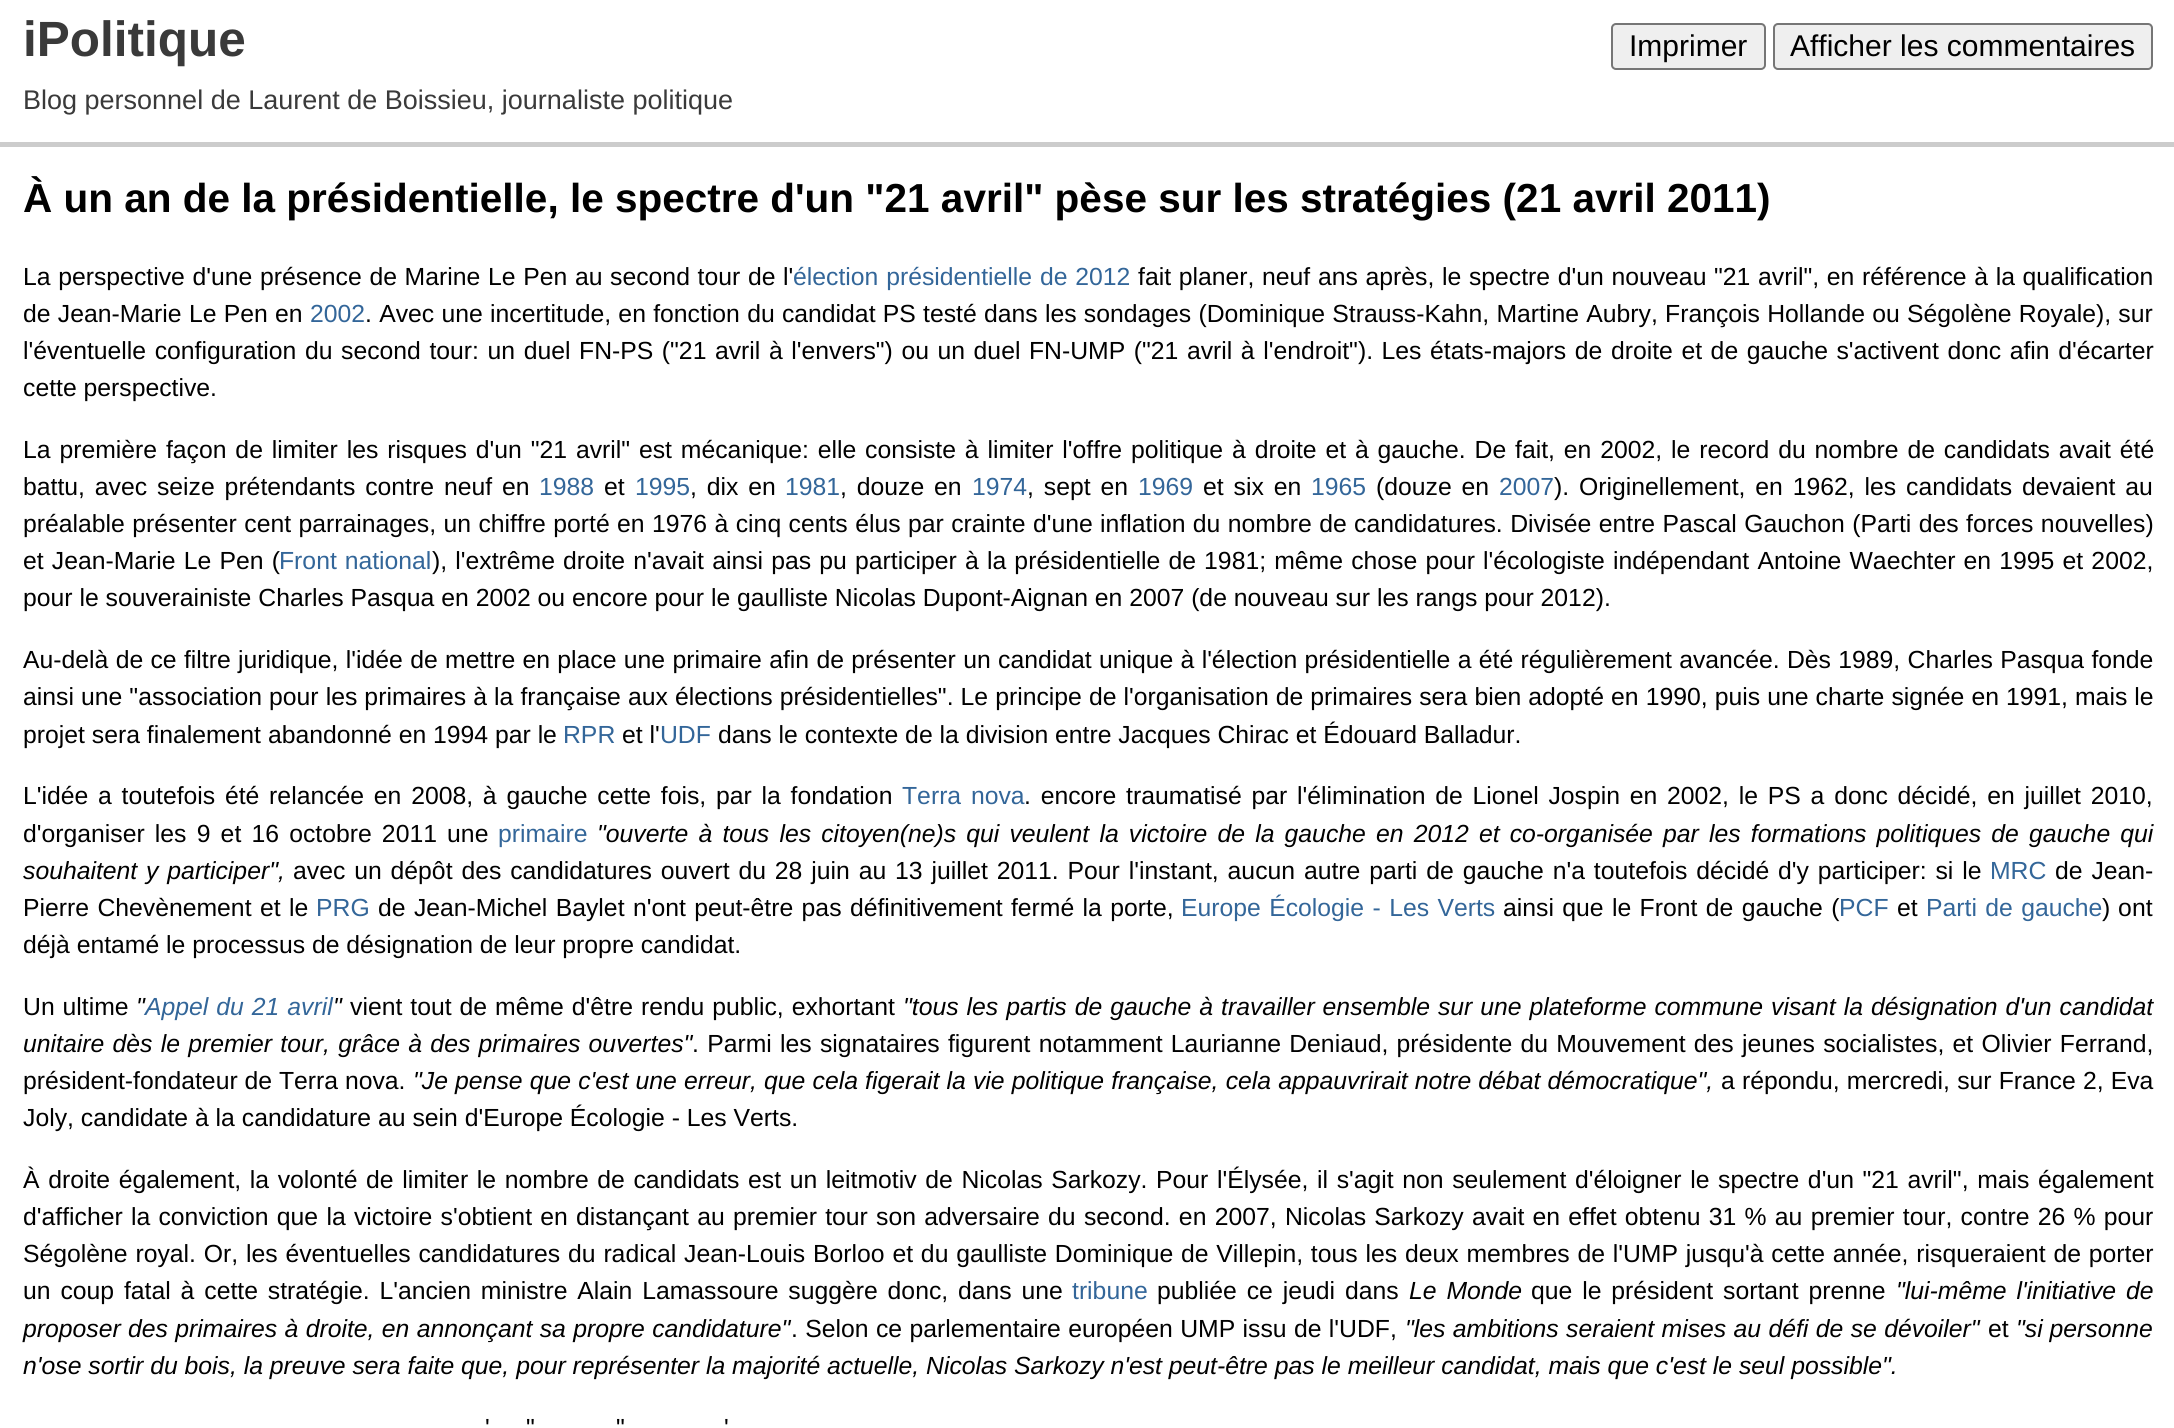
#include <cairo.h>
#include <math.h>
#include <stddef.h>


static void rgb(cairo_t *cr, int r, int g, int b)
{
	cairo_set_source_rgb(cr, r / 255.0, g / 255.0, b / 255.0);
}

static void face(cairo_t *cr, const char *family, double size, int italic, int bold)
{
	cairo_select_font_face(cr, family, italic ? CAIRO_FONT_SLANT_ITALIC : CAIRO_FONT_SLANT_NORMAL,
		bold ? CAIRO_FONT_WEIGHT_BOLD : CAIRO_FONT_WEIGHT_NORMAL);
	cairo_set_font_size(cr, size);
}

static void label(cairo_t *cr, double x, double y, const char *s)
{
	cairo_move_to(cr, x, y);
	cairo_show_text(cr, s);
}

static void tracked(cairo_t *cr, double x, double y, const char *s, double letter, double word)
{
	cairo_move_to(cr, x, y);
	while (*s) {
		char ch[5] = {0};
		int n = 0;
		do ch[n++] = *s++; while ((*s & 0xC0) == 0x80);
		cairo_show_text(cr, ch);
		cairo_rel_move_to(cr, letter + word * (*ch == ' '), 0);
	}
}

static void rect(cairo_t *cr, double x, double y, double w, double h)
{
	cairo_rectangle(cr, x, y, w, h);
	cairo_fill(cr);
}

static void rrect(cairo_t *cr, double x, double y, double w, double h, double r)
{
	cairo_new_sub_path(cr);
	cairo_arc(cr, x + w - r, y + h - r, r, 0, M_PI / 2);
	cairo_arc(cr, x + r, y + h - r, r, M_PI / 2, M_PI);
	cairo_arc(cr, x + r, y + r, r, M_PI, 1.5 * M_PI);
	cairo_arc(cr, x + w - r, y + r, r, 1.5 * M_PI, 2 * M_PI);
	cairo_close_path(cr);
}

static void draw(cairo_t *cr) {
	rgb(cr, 255, 255, 255);
	cairo_paint(cr);
	rgb(cr, 204, 204, 204);
	rect(cr, 0, 142, 2174, 5);
	face(cr, "Liberation Sans", 49.5, 0, 1);
	rgb(cr, 58, 58, 58);
	label(cr, 23, 56, "iPolitique");
	rgb(cr, 239, 239, 239);
	rrect(cr, 1612, 24, 153, 45, 4);
	cairo_fill_preserve(cr);
	rgb(cr, 118, 118, 118);
	cairo_stroke(cr);
	face(cr, "Liberation Sans", 30, 0, 0);
	rgb(cr, 0, 0, 0);
	label(cr, 1629, 56, "Imprimer");
	rgb(cr, 239, 239, 239);
	rrect(cr, 1774, 24, 378, 45, 4);
	cairo_fill_preserve(cr);
	rgb(cr, 118, 118, 118);
	cairo_stroke(cr);
	rgb(cr, 0, 0, 0);
	label(cr, 1790, 56, "Afficher les commentaires");
	face(cr, "Liberation Sans", 27, 0, 0);
	rgb(cr, 58, 58, 58);
	label(cr, 23, 109, "Blog personnel de Laurent de Boissieu, journaliste politique");
	face(cr, "Liberation Sans", 40.5, 0, 1);
	rgb(cr, 0, 0, 0);
	label(cr, 23, 212, "À un an de la présidentielle, le spectre d'un \"21 avril\" pèse sur les stratégies (21 avril 2011)");
	face(cr, "Liberation Sans", 24.75, 0, 0);
	tracked(cr, 23, 285, "La perspective d'une présence de Marine Le Pen au second tour de l'", 0, 0.8);
	rgb(cr, 51, 102, 153);
	tracked(cr, 793, 285, "élection présidentielle de 2012", 0, 1);
	rgb(cr, 0, 0, 0);
	tracked(cr, 1138, 285, "fait planer, neuf ans après, le spectre d'un nouveau \"21 avril\", en référence à la qualification", 0, 0.8);
	tracked(cr, 23, 322, "de Jean-Marie Le Pen en", 0, 0.4);
	rgb(cr, 51, 102, 153);
	label(cr, 310, 322, "2002");
	rgb(cr, 0, 0, 0);
	tracked(cr, 365, 322, ". Avec une incertitude, en fonction du candidat PS testé dans les sondages (Dominique Strauss-Kahn, Martine Aubry, François Hollande ou Ségolène Royale), sur", 0, 0.4);
	tracked(cr, 23, 359, "l'éventuelle configuration du second tour: un duel FN-PS (\"21 avril à l'envers\") ou un duel FN-UMP (\"21 avril à l'endroit\"). Les états-majors de droite et de gauche s'activent donc afin d'écarter", 0, 1.7);
	label(cr, 23, 396, "cette perspective.");
	tracked(cr, 23, 458, "La première façon de limiter les risques d'un \"21 avril\" est mécanique: elle consiste à limiter l'offre politique à droite et à gauche. De fait, en 2002, le record du nombre de candidats avait été", 0, 2);
	tracked(cr, 23, 495, "battu, avec seize prétendants contre neuf en", 0, 3);
	rgb(cr, 51, 102, 153);
	label(cr, 539, 495, "1988");
	rgb(cr, 0, 0, 0);
	label(cr, 604, 495, "et");
	rgb(cr, 51, 102, 153);
	label(cr, 635, 495, "1995");
	rgb(cr, 0, 0, 0);
	tracked(cr, 690, 495, ", dix en", 0, 3);
	rgb(cr, 51, 102, 153);
	label(cr, 785, 495, "1981");
	rgb(cr, 0, 0, 0);
	tracked(cr, 840, 495, ", douze en", 0, 3);
	rgb(cr, 51, 102, 153);
	label(cr, 972, 495, "1974");
	rgb(cr, 0, 0, 0);
	tracked(cr, 1027, 495, ", sept en", 0, 3);
	rgb(cr, 51, 102, 153);
	label(cr, 1138, 495, "1969");
	rgb(cr, 0, 0, 0);
	tracked(cr, 1203, 495, "et six en", 0, 3);
	rgb(cr, 51, 102, 153);
	label(cr, 1311, 495, "1965");
	rgb(cr, 0, 0, 0);
	tracked(cr, 1376, 495, "(douze en", 0, 3);
	rgb(cr, 51, 102, 153);
	label(cr, 1499, 495, "2007");
	rgb(cr, 0, 0, 0);
	tracked(cr, 1554, 495, "). Originellement, en 1962, les candidats devaient au", 0, 3);
	tracked(cr, 23, 532, "préalable présenter cent parrainages, un chiffre porté en 1976 à cinq cents élus par crainte d'une inflation du nombre de candidatures. Divisée entre Pascal Gauchon (Parti des forces nouvelles)", 0, 0.55);
	tracked(cr, 23, 569, "et Jean-Marie Le Pen (", 0, 1.3);
	rgb(cr, 51, 102, 153);
	tracked(cr, 279, 569, "Front national", 0, 1);
	rgb(cr, 0, 0, 0);
	tracked(cr, 432, 569, "), l'extrême droite n'avait ainsi pas pu participer à la présidentielle de 1981; même chose pour l'écologiste indépendant Antoine Waechter en 1995 et 2002,", 0, 1.3);
	label(cr, 23, 606, "pour le souverainiste Charles Pasqua en 2002 ou encore pour le gaulliste Nicolas Dupont-Aignan en 2007 (de nouveau sur les rangs pour 2012).");
	tracked(cr, 23, 668, "Au-delà de ce filtre juridique, l'idée de mettre en place une primaire afin de présenter un candidat unique à l'élection présidentielle a été régulièrement avancée. Dès 1989, Charles Pasqua fonde", 0, 0.45);
	tracked(cr, 23, 705, "ainsi une \"association pour les primaires à la française aux élections présidentielles\". Le principe de l'organisation de primaires sera bien adopté en 1990, puis une charte signée en 1991, mais le", 0, 0.2);
	label(cr, 23, 743, "projet sera finalement abandonné en 1994 par le");
	rgb(cr, 51, 102, 153);
	label(cr, 563, 743, "RPR");
	rgb(cr, 0, 0, 0);
	label(cr, 622, 743, "et l'");
	rgb(cr, 51, 102, 153);
	label(cr, 660, 743, "UDF");
	rgb(cr, 0, 0, 0);
	label(cr, 718, 743, "dans le contexte de la division entre Jacques Chirac et Édouard Balladur.");
	tracked(cr, 23, 804, "L'idée a toutefois été relancée en 2008, à gauche cette fois, par la fondation", 0, 2.9);
	rgb(cr, 51, 102, 153);
	tracked(cr, 902, 804, "Terra nova", 0, 2.9);
	rgb(cr, 0, 0, 0);
	tracked(cr, 1024, 804, ". encore traumatisé par l'élimination de Lionel Jospin en 2002, le PS a donc décidé, en juillet 2010,", 0, 2.9);
	tracked(cr, 23, 842, "d'organiser les 9 et 16 octobre 2011 une", 0, 3.3);
	rgb(cr, 51, 102, 153);
	label(cr, 498, 842, "primaire");
	face(cr, "Liberation Sans", 24.75, 1, 0);
	rgb(cr, 0, 0, 0);
	tracked(cr, 597, 842, "\"ouverte à tous les citoyen(ne)s qui veulent la victoire de la gauche en 2012 et co-organisée par les formations politiques de gauche qui", 0, 3.3);
	tracked(cr, 23, 879, "souhaitent y participer\",", 0, 2);
	face(cr, "Liberation Sans", 24.75, 0, 0);
	tracked(cr, 293, 879, "avec un dépôt des candidatures ouvert du 28 juin au 13 juillet 2011. Pour l'instant, aucun autre parti de gauche n'a toutefois décidé d'y participer: si le", 0, 2);
	rgb(cr, 51, 102, 153);
	label(cr, 1990, 879, "MRC");
	rgb(cr, 0, 0, 0);
	tracked(cr, 2055, 879, "de Jean-", 0, 2);
	tracked(cr, 23, 916, "Pierre Chevènement et le", 0, 1.5);
	rgb(cr, 51, 102, 153);
	label(cr, 316, 916, "PRG");
	rgb(cr, 0, 0, 0);
	tracked(cr, 378, 916, "de Jean-Michel Baylet n'ont peut-être pas définitivement fermé la porte,", 0, 1.5);
	rgb(cr, 51, 102, 153);
	tracked(cr, 1181, 916, "Europe Écologie - Les Verts", 0, 1.5);
	rgb(cr, 0, 0, 0);
	tracked(cr, 1503, 916, "ainsi que le Front de gauche (", 0, 1.5);
	rgb(cr, 51, 102, 153);
	label(cr, 1839, 916, "PCF");
	rgb(cr, 0, 0, 0);
	label(cr, 1897, 916, "et");
	rgb(cr, 51, 102, 153);
	tracked(cr, 1926, 916, "Parti de gauche", 0, 1.5);
	rgb(cr, 0, 0, 0);
	tracked(cr, 2102, 916, ") ont", 0, 1);
	label(cr, 23, 953, "déjà entamé le processus de désignation de leur propre candidat.");
	tracked(cr, 23, 1015, "Un ultime", 0, 1);
	face(cr, "Liberation Sans", 24.75, 1, 0);
	label(cr, 136, 1015, "\"");
	rgb(cr, 51, 102, 153);
	tracked(cr, 145, 1015, "Appel du 21 avril", 0, 1.1);
	rgb(cr, 0, 0, 0);
	label(cr, 333, 1015, "\"");
	face(cr, "Liberation Sans", 24.75, 0, 0);
	tracked(cr, 350, 1015, "vient tout de même d'être rendu public, exhortant", 0, 1.1);
	face(cr, "Liberation Sans", 24.75, 1, 0);
	tracked(cr, 903, 1015, "\"tous les partis de gauche à travailler ensemble sur une plateforme commune visant la désignation d'un candidat", 0, 1.1);
	tracked(cr, 23, 1052, "unitaire dès le premier tour, grâce à des primaires ouvertes\"", 0, 1.4);
	face(cr, "Liberation Sans", 24.75, 0, 0);
	tracked(cr, 692, 1052, ". Parmi les signataires figurent notamment Laurianne Deniaud, présidente du Mouvement des jeunes socialistes, et Olivier Ferrand,", 0, 1.4);
	label(cr, 23, 1089, "président-fondateur de Terra nova.");
	face(cr, "Liberation Sans", 24.75, 1, 0);
	tracked(cr, 413, 1089, "\"Je pense que c'est une erreur, que cela figerait la vie politique française, cela appauvrirait notre débat démocratique\",", 0, 0.3);
	face(cr, "Liberation Sans", 24.75, 0, 0);
	tracked(cr, 1721, 1089, "a répondu, mercredi, sur France 2, Eva", 0, 0.3);
	label(cr, 23, 1126, "Joly, candidate à la candidature au sein d'Europe Écologie - Les Verts.");
	tracked(cr, 23, 1188, "À droite également, la volonté de limiter le nombre de candidats est un leitmotiv de Nicolas Sarkozy. Pour l'Élysée, il s'agit non seulement d'éloigner le spectre d'un \"21 avril\", mais également", 0, 1.75);
	tracked(cr, 23, 1225, "d'afficher la conviction que la victoire s'obtient en distançant au premier tour son adversaire du second. en 2007, Nicolas Sarkozy avait en effet obtenu 31 % au premier tour, contre 26 % pour", 0, 1.4);
	tracked(cr, 23, 1262, "Ségolène royal. Or, les éventuelles candidatures du radical Jean-Louis Borloo et du gaulliste Dominique de Villepin, tous les deux membres de l'UMP jusqu'à cette année, risqueraient de porter", 0, 0.95);
	tracked(cr, 23, 1299, "un coup fatal à cette stratégie. L'ancien ministre Alain Lamassoure suggère donc, dans une", 0, 3);
	rgb(cr, 51, 102, 153);
	label(cr, 1072, 1299, "tribune");
	rgb(cr, 0, 0, 0);
	tracked(cr, 1157, 1299, "publiée ce jeudi dans", 0, 3);
	face(cr, "Liberation Sans", 24.75, 1, 0);
	tracked(cr, 1409, 1299, "Le Monde", 0, 3);
	face(cr, "Liberation Sans", 24.75, 0, 0);
	tracked(cr, 1531, 1299, "que le président sortant prenne", 0, 3);
	face(cr, "Liberation Sans", 24.75, 1, 0);
	tracked(cr, 1896, 1299, "\"lui-même l'initiative de", 0, 3);
	tracked(cr, 23, 1337, "proposer des primaires à droite, en annonçant sa propre candidature\"", 0, 0.5);
	face(cr, "Liberation Sans", 24.75, 0, 0);
	tracked(cr, 791, 1337, ". Selon ce parlementaire européen UMP issu de l'UDF,", 0, 0.5);
	face(cr, "Liberation Sans", 24.75, 1, 0);
	tracked(cr, 1405, 1337, "\"les ambitions seraient mises au déﬁ de se dévoiler\"", 0, 0.5);
	face(cr, "Liberation Sans", 24.75, 0, 0);
	label(cr, 1988, 1337, "et");
	face(cr, "Liberation Sans", 24.75, 1, 0);
	label(cr, 2016, 1337, "\"si personne");
	label(cr, 23, 1374, "n'ose sortir du bois, la preuve sera faite que, pour représenter la majorité actuelle, Nicolas Sarkozy n'est peut-être pas le meilleur candidat, mais que c'est le seul possible\".");
	face(cr, "Liberation Sans", 24.75, 0, 0);
	tracked(cr, 485, 1436, "'", 0, 2);
	tracked(cr, 526, 1436, "\"", 0, 2);
	tracked(cr, 616, 1436, "\"", 0, 2);
	tracked(cr, 724, 1436, "'", 0, 2);
}

int main(void) {
	cairo_surface_t *surface = cairo_image_surface_create(CAIRO_FORMAT_RGB24, 2174, 1428);
	cairo_t *cr = cairo_create(surface);
	cairo_font_options_t *options = cairo_font_options_create();
	cairo_font_options_set_hint_metrics(options, CAIRO_HINT_METRICS_OFF);
	cairo_font_options_set_hint_style(options, CAIRO_HINT_STYLE_NONE);
	cairo_set_font_options(cr, options);
	cairo_set_miter_limit(cr, 4);
	draw(cr);
	cairo_surface_write_to_png(surface, "render.png");
	cairo_font_options_destroy(options);
	cairo_destroy(cr);
	cairo_surface_destroy(surface);
	return 0;
}
